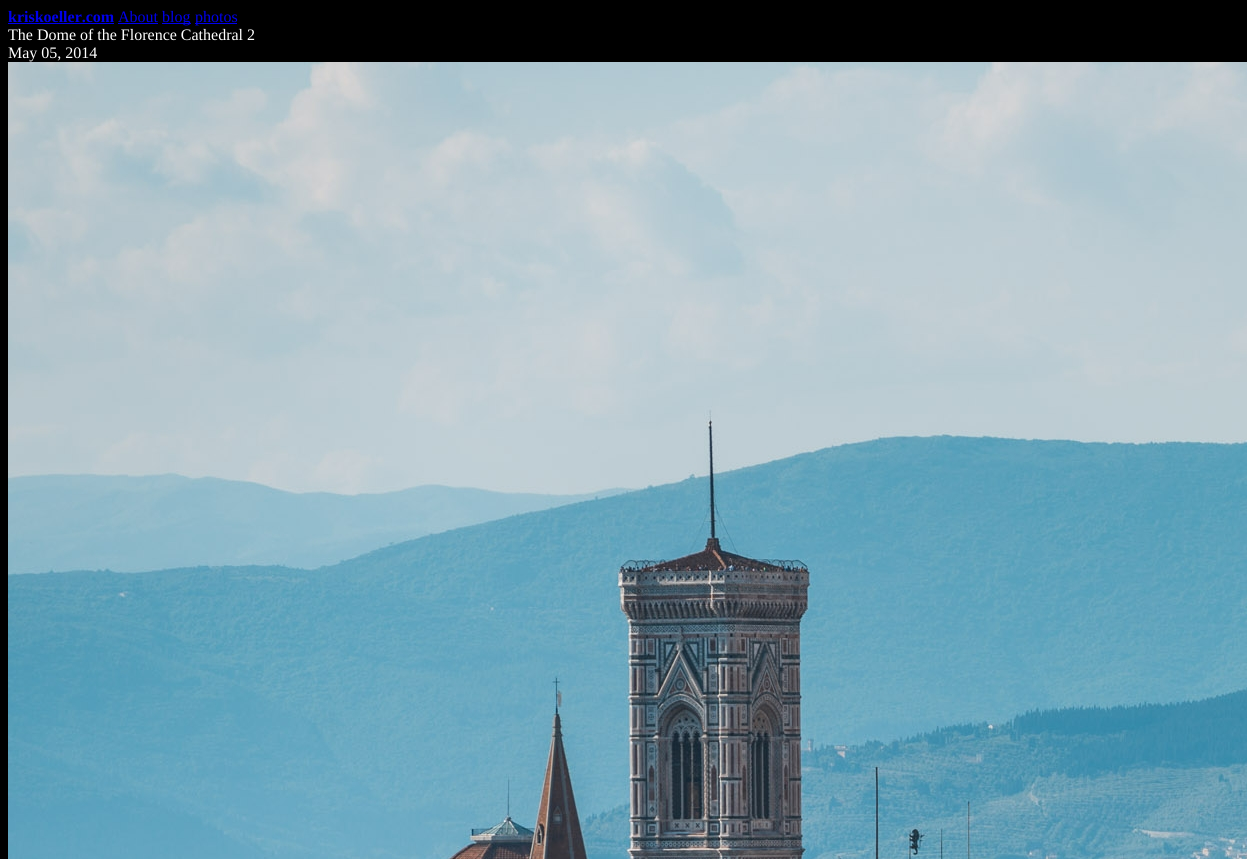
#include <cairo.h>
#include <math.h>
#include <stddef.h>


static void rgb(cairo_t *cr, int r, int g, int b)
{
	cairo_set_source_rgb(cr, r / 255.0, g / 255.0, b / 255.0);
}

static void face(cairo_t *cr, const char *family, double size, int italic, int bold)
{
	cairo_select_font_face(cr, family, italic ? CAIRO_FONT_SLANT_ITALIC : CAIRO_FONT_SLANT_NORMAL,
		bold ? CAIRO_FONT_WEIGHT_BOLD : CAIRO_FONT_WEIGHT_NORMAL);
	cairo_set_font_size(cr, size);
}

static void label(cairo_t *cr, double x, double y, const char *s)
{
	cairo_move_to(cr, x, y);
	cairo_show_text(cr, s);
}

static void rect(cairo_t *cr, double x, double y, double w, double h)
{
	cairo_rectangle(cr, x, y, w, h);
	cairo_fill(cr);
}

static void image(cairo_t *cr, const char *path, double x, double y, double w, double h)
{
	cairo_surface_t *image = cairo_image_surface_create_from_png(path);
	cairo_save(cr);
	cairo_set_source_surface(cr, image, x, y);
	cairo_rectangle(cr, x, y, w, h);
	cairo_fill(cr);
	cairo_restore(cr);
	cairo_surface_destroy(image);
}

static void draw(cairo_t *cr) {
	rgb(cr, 0, 0, 0);
	cairo_paint(cr);
	face(cr, "Liberation Serif", 16, 0, 1);
	rgb(cr, 0, 0, 238);
	label(cr, 8, 22, "kriskoeller.com");
	rect(cr, 8, 23, 106, 1);
	face(cr, "Liberation Serif", 16, 0, 0);
	label(cr, 118, 22, "About");
	rect(cr, 118, 23, 40, 1);
	rect(cr, 162, 23, 29, 1);
	label(cr, 162, 22, "blog");
	rect(cr, 195, 23, 42, 1);
	label(cr, 195, 22, "photos");
	rgb(cr, 255, 255, 255);
	label(cr, 8, 40, "The Dome of the Florence Cathedral 2");
	label(cr, 8, 58, "May 05, 2014");
	image(cr, "image0.png", 8, 62, 1239, 797);
}

int main(void) {
	cairo_surface_t *surface = cairo_image_surface_create(CAIRO_FORMAT_RGB24, 1247, 859);
	cairo_t *cr = cairo_create(surface);
	cairo_font_options_t *options = cairo_font_options_create();
	cairo_font_options_set_hint_metrics(options, CAIRO_HINT_METRICS_OFF);
	cairo_font_options_set_hint_style(options, CAIRO_HINT_STYLE_NONE);
	cairo_set_font_options(cr, options);
	cairo_set_miter_limit(cr, 4);
	draw(cr);
	cairo_surface_write_to_png(surface, "render.png");
	cairo_font_options_destroy(options);
	cairo_destroy(cr);
	cairo_surface_destroy(surface);
	return 0;
}
